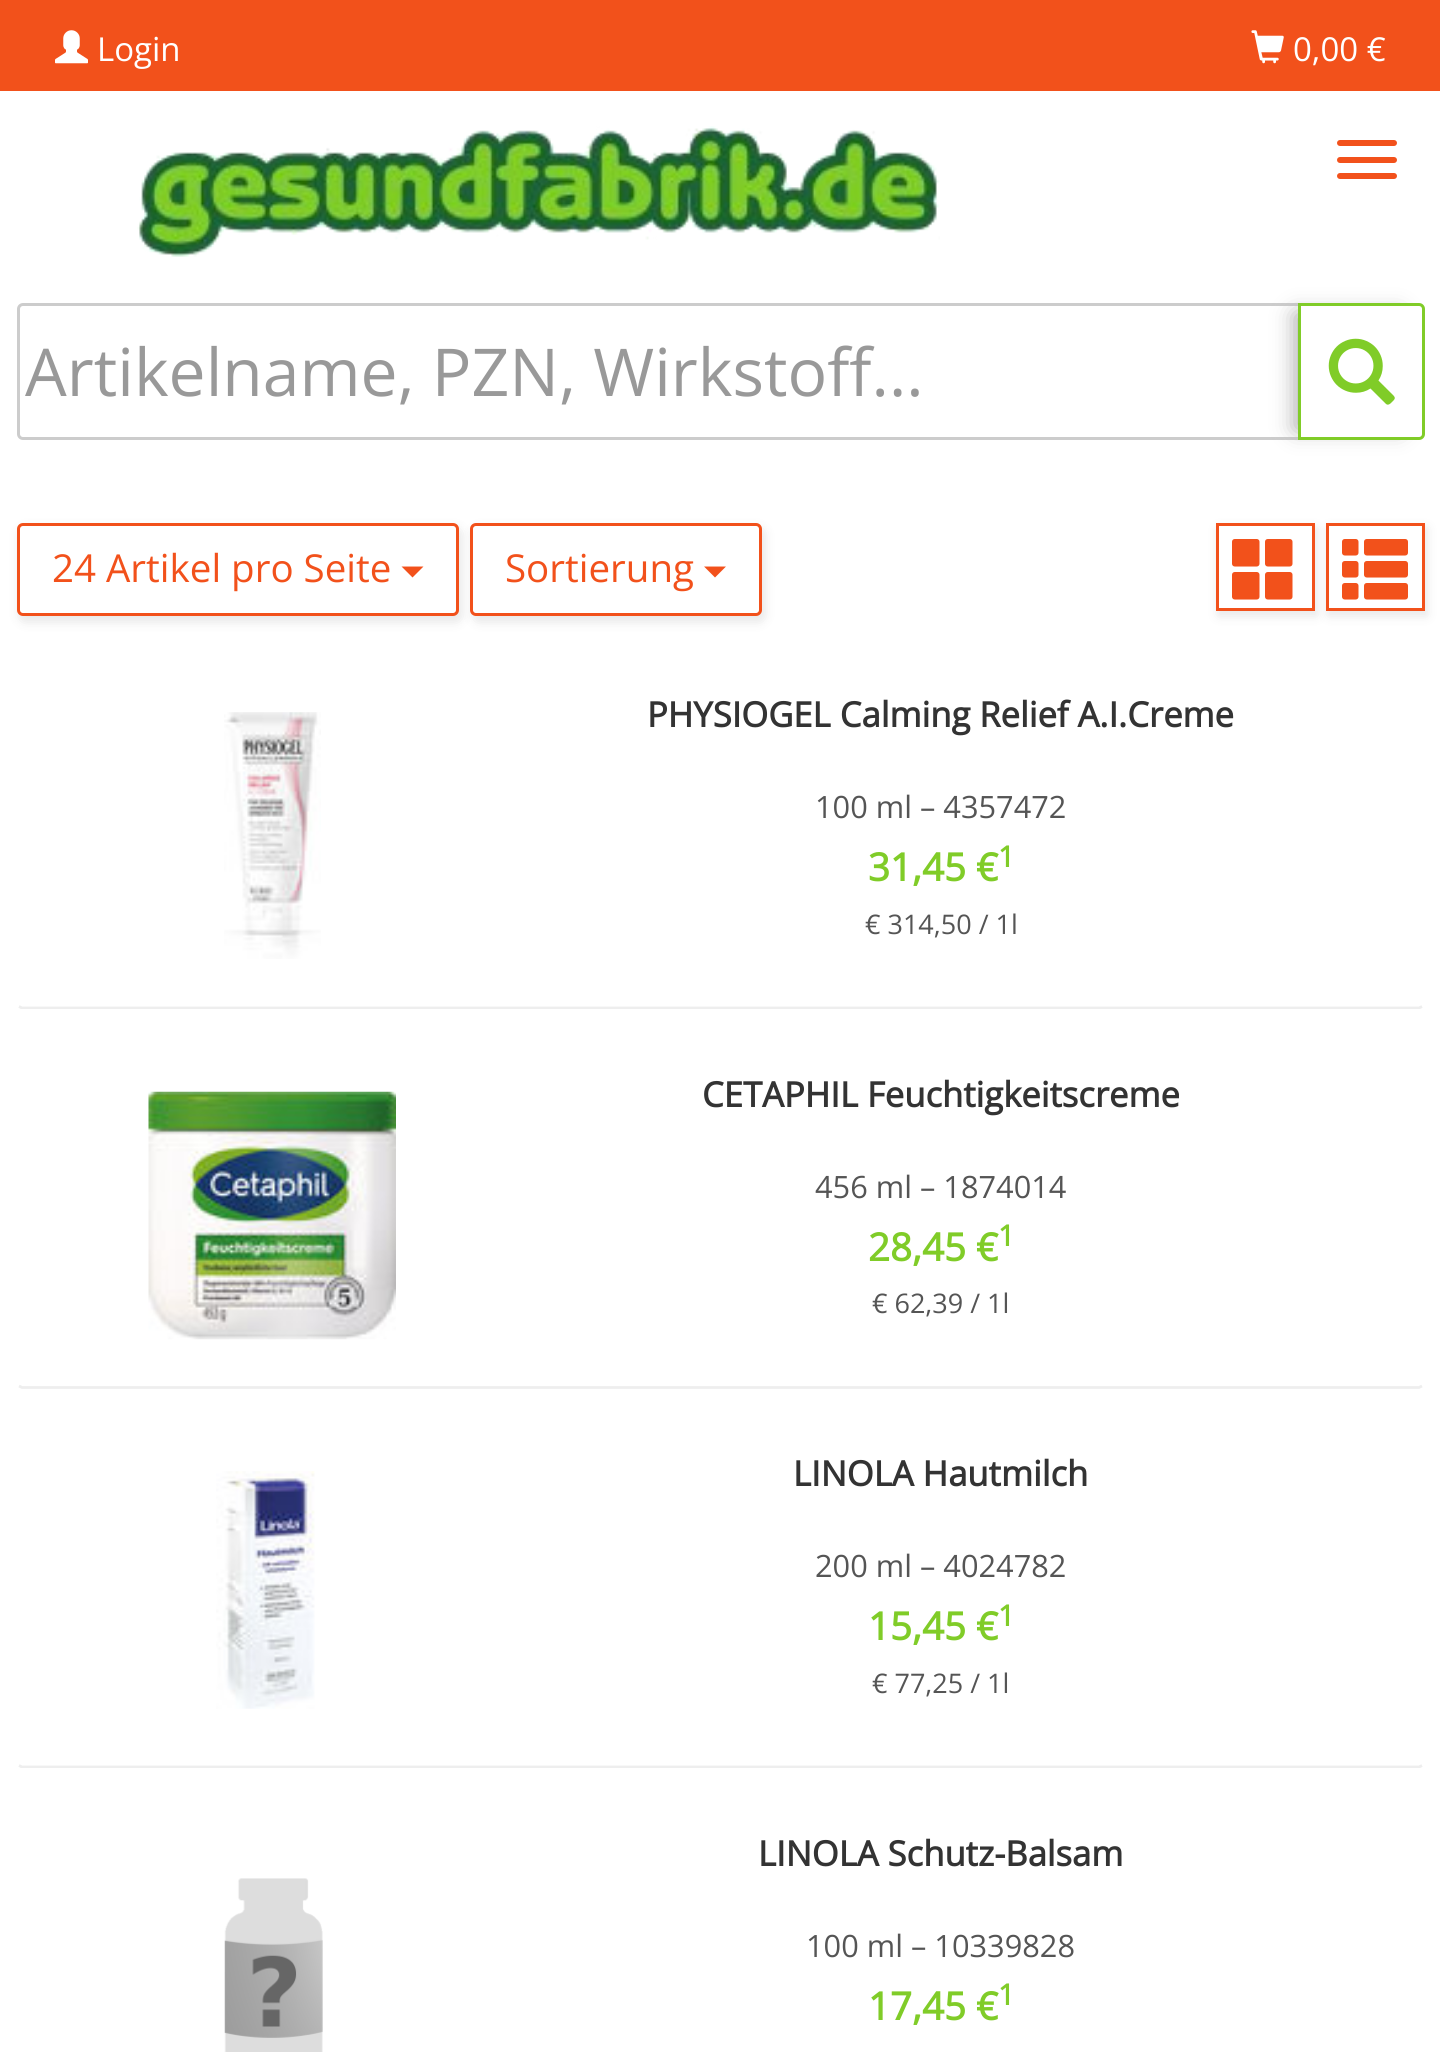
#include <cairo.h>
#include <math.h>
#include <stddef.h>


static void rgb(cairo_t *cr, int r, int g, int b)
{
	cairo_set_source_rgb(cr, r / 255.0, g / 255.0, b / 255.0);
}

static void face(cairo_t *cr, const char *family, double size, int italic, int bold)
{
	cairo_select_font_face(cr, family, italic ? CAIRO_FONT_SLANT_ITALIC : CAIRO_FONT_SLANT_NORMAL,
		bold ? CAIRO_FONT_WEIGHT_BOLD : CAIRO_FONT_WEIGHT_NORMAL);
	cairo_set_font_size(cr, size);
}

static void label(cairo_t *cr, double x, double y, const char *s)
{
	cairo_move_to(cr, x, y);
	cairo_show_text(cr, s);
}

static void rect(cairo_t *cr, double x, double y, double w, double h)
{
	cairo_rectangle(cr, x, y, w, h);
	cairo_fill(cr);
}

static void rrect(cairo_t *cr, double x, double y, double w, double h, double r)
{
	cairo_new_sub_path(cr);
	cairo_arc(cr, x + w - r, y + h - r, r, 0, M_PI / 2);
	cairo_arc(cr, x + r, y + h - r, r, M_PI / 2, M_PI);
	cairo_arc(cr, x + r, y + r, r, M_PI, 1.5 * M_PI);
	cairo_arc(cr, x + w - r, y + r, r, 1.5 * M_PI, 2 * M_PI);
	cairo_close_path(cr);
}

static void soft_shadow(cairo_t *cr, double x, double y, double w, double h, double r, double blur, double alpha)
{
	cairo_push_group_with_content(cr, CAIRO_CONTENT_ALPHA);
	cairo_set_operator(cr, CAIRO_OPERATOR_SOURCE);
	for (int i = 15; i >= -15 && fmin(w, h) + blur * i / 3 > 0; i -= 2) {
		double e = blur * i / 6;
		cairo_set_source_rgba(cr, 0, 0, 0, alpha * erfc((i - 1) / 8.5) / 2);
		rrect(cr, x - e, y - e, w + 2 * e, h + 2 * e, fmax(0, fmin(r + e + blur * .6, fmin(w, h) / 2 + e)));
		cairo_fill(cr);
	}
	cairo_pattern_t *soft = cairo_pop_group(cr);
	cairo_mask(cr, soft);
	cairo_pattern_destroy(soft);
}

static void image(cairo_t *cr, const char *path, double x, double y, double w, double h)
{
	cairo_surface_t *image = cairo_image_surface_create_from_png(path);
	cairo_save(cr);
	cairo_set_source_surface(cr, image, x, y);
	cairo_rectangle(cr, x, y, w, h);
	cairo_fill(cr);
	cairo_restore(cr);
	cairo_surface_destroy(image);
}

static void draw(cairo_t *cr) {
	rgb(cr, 255, 255, 255);
	cairo_paint(cr);
	rgb(cr, 242, 81, 27);
	rect(cr, 0, 0, 1440, 91);
	image(cr, "image0.png", 55, 30, 33, 34);
	face(cr, "Open Sans", 33, 0, 0);
	rgb(cr, 255, 255, 255);
	label(cr, 97, 61, "Login");
	image(cr, "image1.png", 1251, 30, 33, 34);
	label(cr, 1293, 61, "0,00 €");
	image(cr, "image2.png", 137, 126, 803, 131);
	rgb(cr, 242, 81, 27);
	rrect(cr, 1337, 140, 60, 6, 3);
	cairo_fill(cr);
	rrect(cr, 1337, 157, 60, 6, 3);
	cairo_fill(cr);
	rrect(cr, 1337, 173, 60, 6, 3);
	cairo_fill(cr);
	cairo_new_path(cr);
	cairo_move_to(cr, 23, 304.5);
	cairo_line_to(cr, 1299.5, 304.5);
	cairo_line_to(cr, 1299.5, 438.5);
	cairo_line_to(cr, 23, 438.5);
	cairo_curve_to(cr, 20.5, 438.5, 18.5, 436.5, 18.5, 434);
	cairo_line_to(cr, 18.5, 309);
	cairo_curve_to(cr, 18.5, 306.5, 20.5, 304.5, 23, 304.5);
	cairo_close_path(cr);
	rgb(cr, 204, 204, 204);
	cairo_set_line_width(cr, 3);
	cairo_stroke(cr);
	face(cr, "Open Sans", 66, 0, 0);
	rgb(cr, 153, 153, 153);
	label(cr, 25, 396, "Artikelname, PZN, Wirkstoff...");
	rgb(cr, 170, 170, 170);
	soft_shadow(cr, 1295, 314, 105, 115, 0, 11, 1);
	rgb(cr, 255, 255, 255);
	cairo_new_path(cr);
	cairo_move_to(cr, 1299.5, 304.5);
	cairo_line_to(cr, 1419, 304.5);
	cairo_curve_to(cr, 1421.5, 304.5, 1423.5, 306.5, 1423.5, 309);
	cairo_line_to(cr, 1423.5, 434);
	cairo_curve_to(cr, 1423.5, 436.5, 1421.5, 438.5, 1419, 438.5);
	cairo_line_to(cr, 1299.5, 438.5);
	cairo_close_path(cr);
	cairo_fill_preserve(cr);
	rgb(cr, 128, 204, 40);
	cairo_stroke(cr);
	image(cr, "image3.png", 1328, 338, 67, 67);
	rgb(cr, 55, 55, 55);
	soft_shadow(cr, 19, 528, 443, 94, 6, 5.5, 0.12);
	rgb(cr, 255, 255, 255);
	rrect(cr, 18.5, 524.5, 439, 90, 4.5);
	cairo_fill_preserve(cr);
	rgb(cr, 242, 81, 27);
	cairo_stroke(cr);
	face(cr, "Open Sans", 38.5, 0, 0);
	label(cr, 52, 582, "24 Artikel pro Seite");
	cairo_new_path(cr);
	cairo_move_to(cr, 401.5, 566.5);
	cairo_line_to(cr, 423.5, 566.5);
	cairo_line_to(cr, 412.5, 577.5);
	cairo_close_path(cr);
	cairo_fill(cr);
	rgb(cr, 55, 55, 55);
	soft_shadow(cr, 473, 528, 292, 94, 6, 5.5, 0.12);
	rgb(cr, 255, 255, 255);
	rrect(cr, 471.5, 524.5, 289, 90, 4.5);
	cairo_fill_preserve(cr);
	rgb(cr, 242, 81, 27);
	cairo_stroke(cr);
	label(cr, 505, 582, "Sortierung");
	cairo_new_path(cr);
	cairo_move_to(cr, 704, 566.5);
	cairo_line_to(cr, 726, 566.5);
	cairo_line_to(cr, 715, 577.5);
	cairo_close_path(cr);
	cairo_fill(cr);
	rgb(cr, 55, 55, 55);
	soft_shadow(cr, 1218, 528, 99, 88, 0, 5.5, 0.12);
	rgb(cr, 255, 255, 255);
	cairo_rectangle(cr, 1217.5, 524.5, 96, 85);
	cairo_fill_preserve(cr);
	rgb(cr, 242, 81, 27);
	cairo_stroke(cr);
	image(cr, "image4.png", 1232, 539, 61, 61);
	rgb(cr, 55, 55, 55);
	soft_shadow(cr, 1328, 528, 99, 88, 0, 5.5, 0.12);
	rgb(cr, 255, 255, 255);
	cairo_rectangle(cr, 1327.5, 524.5, 96, 85);
	cairo_fill_preserve(cr);
	rgb(cr, 242, 81, 27);
	cairo_stroke(cr);
	image(cr, "image5.png", 1342, 539, 66, 61);
	cairo_save(cr);
	cairo_rectangle(cr, 0, 663, 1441, 346);
	cairo_clip(cr);
	cairo_new_path(cr);
	cairo_move_to(cr, 1422, 1006.5);
	cairo_line_to(cr, 1419, 1008);
	cairo_line_to(cr, 22, 1008);
	cairo_line_to(cr, 19, 1006.5);
	rgb(cr, 238, 238, 238);
	cairo_set_line_width(cr, 2.8);
	cairo_stroke(cr);
	cairo_restore(cr);
	image(cr, "image6.png", 224, 712, 97, 247);
	face(cr, "Open Sans", 34.6, 0, 1);
	rgb(cr, 51, 51, 51);
	label(cr, 647, 727, "PHYSIOGEL Calming Relief A.I.Creme");
	face(cr, "Open Sans", 30.75, 0, 0);
	rgb(cr, 85, 85, 85);
	label(cr, 815, 818, "100 ml – 4357472");
	face(cr, "Open Sans", 38.5, 0, 1);
	rgb(cr, 128, 204, 40);
	label(cr, 868, 881, "31,45 €");
	face(cr, "Open Sans", 29, 0, 1);
	label(cr, 998, 867, "1");
	face(cr, "Open Sans", 27, 0, 0);
	rgb(cr, 85, 85, 85);
	label(cr, 865, 934, "€ 314,50 / 1l");
	cairo_new_path(cr);
	cairo_move_to(cr, 1422, 1386);
	cairo_line_to(cr, 1419, 1387.5);
	cairo_line_to(cr, 22, 1387.5);
	cairo_line_to(cr, 19, 1386);
	rgb(cr, 238, 238, 238);
	cairo_set_line_width(cr, 2.8);
	cairo_stroke(cr);
	image(cr, "image7.png", 148, 1091, 248, 249);
	face(cr, "Open Sans", 34.6, 0, 1);
	rgb(cr, 51, 51, 51);
	label(cr, 702, 1107, "CETAPHIL Feuchtigkeitscreme");
	face(cr, "Open Sans", 30.75, 0, 0);
	rgb(cr, 85, 85, 85);
	label(cr, 815, 1198, "456 ml – 1874014");
	face(cr, "Open Sans", 38.5, 0, 1);
	rgb(cr, 128, 204, 40);
	label(cr, 868, 1261, "28,45 €");
	face(cr, "Open Sans", 29, 0, 1);
	label(cr, 998, 1246, "1");
	face(cr, "Open Sans", 27, 0, 0);
	rgb(cr, 85, 85, 85);
	label(cr, 872, 1313, "€ 62,39 / 1l");
	cairo_save(cr);
	cairo_rectangle(cr, 0, 1422, 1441, 346);
	cairo_clip(cr);
	cairo_new_path(cr);
	cairo_move_to(cr, 1422, 1765.5);
	cairo_line_to(cr, 1419, 1767);
	cairo_line_to(cr, 22, 1767);
	cairo_line_to(cr, 19, 1765.5);
	rgb(cr, 238, 238, 238);
	cairo_stroke(cr);
	cairo_restore(cr);
	image(cr, "image8.png", 216, 1471, 99, 238);
	face(cr, "Open Sans", 34.6, 0, 1);
	rgb(cr, 51, 51, 51);
	label(cr, 793, 1486, "LINOLA Hautmilch");
	face(cr, "Open Sans", 30.75, 0, 0);
	rgb(cr, 85, 85, 85);
	label(cr, 815, 1577, "200 ml – 4024782");
	face(cr, "Open Sans", 38.5, 0, 1);
	rgb(cr, 128, 204, 40);
	label(cr, 868, 1640, "15,45 €");
	face(cr, "Open Sans", 29, 0, 1);
	label(cr, 998, 1626, "1");
	face(cr, "Open Sans", 27, 0, 0);
	rgb(cr, 85, 85, 85);
	label(cr, 872, 1693, "€ 77,25 / 1l");
	face(cr, "Open Sans", 34.6, 0, 1);
	rgb(cr, 51, 51, 51);
	label(cr, 758, 1866, "LINOLA Schutz-Balsam");
	image(cr, "image9.png", 224, 1878, 99, 174);
	face(cr, "Open Sans", 30.75, 0, 0);
	rgb(cr, 85, 85, 85);
	label(cr, 806, 1957, "100 ml – 10339828");
	face(cr, "Open Sans", 38.5, 0, 1);
	rgb(cr, 128, 204, 40);
	label(cr, 868, 2020, "17,45 €");
	face(cr, "Open Sans", 29, 0, 1);
	label(cr, 998, 2005, "1");
}

int main(void) {
	cairo_surface_t *surface = cairo_image_surface_create(CAIRO_FORMAT_RGB24, 1440, 2052);
	cairo_t *cr = cairo_create(surface);
	cairo_font_options_t *options = cairo_font_options_create();
	cairo_font_options_set_hint_metrics(options, CAIRO_HINT_METRICS_OFF);
	cairo_font_options_set_hint_style(options, CAIRO_HINT_STYLE_NONE);
	cairo_set_font_options(cr, options);
	cairo_set_miter_limit(cr, 4);
	draw(cr);
	cairo_surface_write_to_png(surface, "render.png");
	cairo_font_options_destroy(options);
	cairo_destroy(cr);
	cairo_surface_destroy(surface);
	return 0;
}
